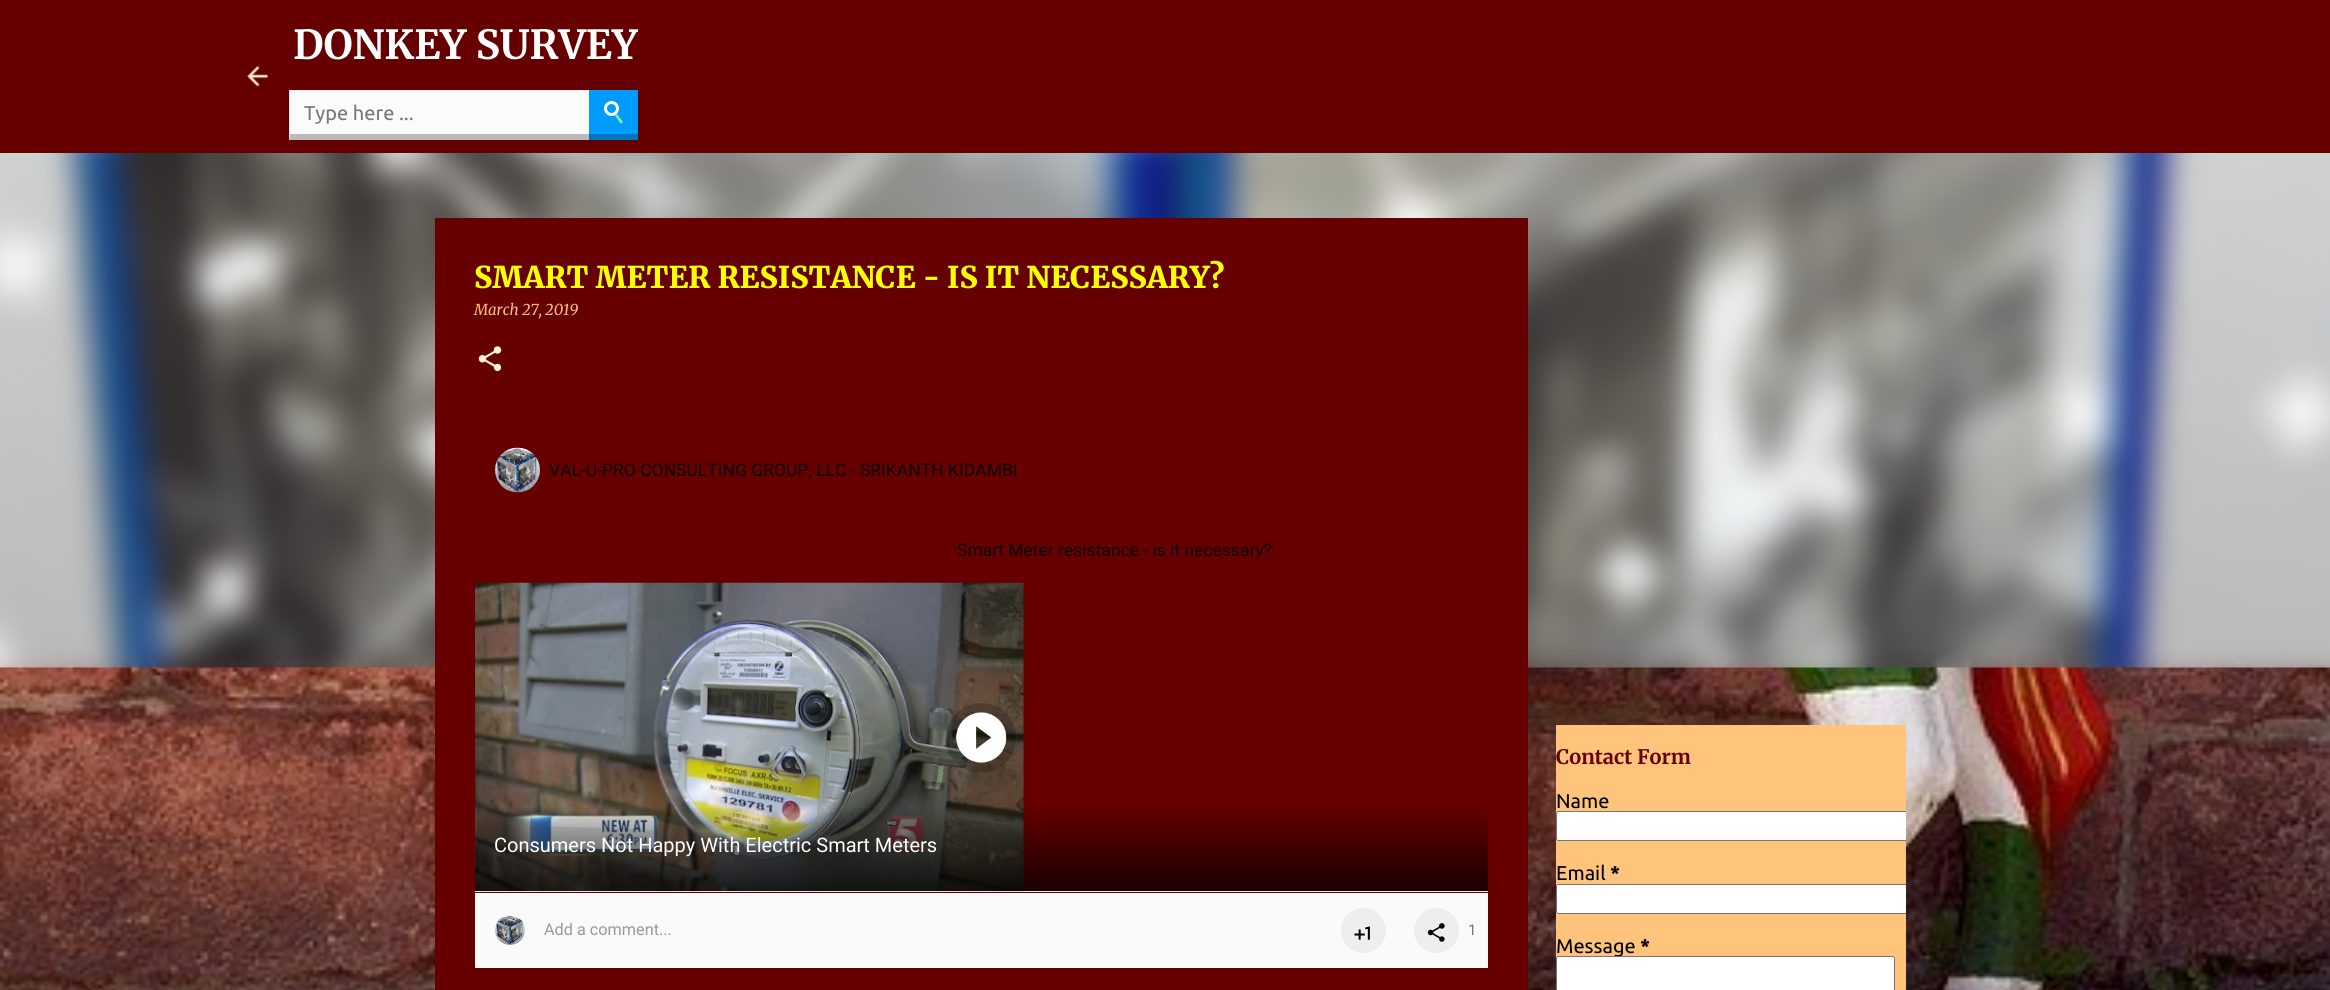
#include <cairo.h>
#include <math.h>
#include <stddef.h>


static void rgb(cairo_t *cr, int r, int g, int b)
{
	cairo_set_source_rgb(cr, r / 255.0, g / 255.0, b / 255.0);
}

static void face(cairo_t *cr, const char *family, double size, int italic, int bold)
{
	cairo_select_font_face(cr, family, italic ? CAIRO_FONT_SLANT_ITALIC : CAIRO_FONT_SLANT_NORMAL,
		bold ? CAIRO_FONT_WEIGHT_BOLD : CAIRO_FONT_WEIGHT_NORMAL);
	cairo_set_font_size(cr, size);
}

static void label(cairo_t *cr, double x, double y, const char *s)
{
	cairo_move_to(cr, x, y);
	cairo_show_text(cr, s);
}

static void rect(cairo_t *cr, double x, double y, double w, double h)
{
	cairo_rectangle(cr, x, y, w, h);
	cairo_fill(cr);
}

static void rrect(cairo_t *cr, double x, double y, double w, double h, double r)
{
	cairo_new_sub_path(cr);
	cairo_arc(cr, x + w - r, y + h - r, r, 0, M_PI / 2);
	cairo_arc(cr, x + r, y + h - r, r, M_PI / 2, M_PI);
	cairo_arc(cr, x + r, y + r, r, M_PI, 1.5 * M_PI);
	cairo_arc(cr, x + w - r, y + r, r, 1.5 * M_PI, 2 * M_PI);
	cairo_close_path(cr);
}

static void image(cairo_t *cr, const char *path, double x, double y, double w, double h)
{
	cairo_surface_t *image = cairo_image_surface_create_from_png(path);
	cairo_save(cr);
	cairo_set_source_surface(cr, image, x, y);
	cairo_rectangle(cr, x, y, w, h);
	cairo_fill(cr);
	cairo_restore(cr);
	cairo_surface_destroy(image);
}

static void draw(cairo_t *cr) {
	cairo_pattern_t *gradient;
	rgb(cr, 255, 255, 255);
	cairo_paint(cr);
	image(cr, "image0.png", 0, 646, 2330, 344);
	rgb(cr, 102, 0, 0);
	rect(cr, 0, 0, 2330, 153);
	image(cr, "image1.png", 247, 66, 21, 21);
	cairo_save(cr);
	cairo_rectangle(cr, 293, 20, 345, 50);
	cairo_clip(cr);
	face(cr, "Merriweather", 40, 0, 1);
	rgb(cr, 255, 255, 255);
	label(cr, 293, 59, "DONKEY SURVEY");
	cairo_restore(cr);
	rgb(cr, 251, 251, 251);
	rect(cr, 289, 91, 300, 49);
	rgb(cr, 234, 234, 234);
	rect(cr, 289, 90, 300, 1);
	rgb(cr, 187, 187, 187);
	cairo_new_path(cr);
	cairo_move_to(cr, 589, 140);
	cairo_line_to(cr, 289, 140);
	cairo_line_to(cr, 290, 134);
	cairo_line_to(cr, 589, 134);
	cairo_close_path(cr);
	cairo_fill(cr);
	rgb(cr, 234, 234, 234);
	cairo_new_path(cr);
	cairo_move_to(cr, 289, 140);
	cairo_line_to(cr, 289, 90);
	cairo_line_to(cr, 290, 91);
	cairo_line_to(cr, 290, 134);
	cairo_close_path(cr);
	cairo_fill(cr);
	face(cr, "Ubuntu", 20, 0, 0);
	rgb(cr, 119, 119, 119);
	label(cr, 304, 120, "Type here ...");
	rgb(cr, 0, 155, 255);
	rect(cr, 589, 90, 49, 44);
	rgb(cr, 2, 118, 193);
	rect(cr, 589, 134, 49, 6);
	rgb(cr, 144, 238, 144);
	cairo_new_path(cr);
	cairo_move_to(cr, 615, 115.5);
	cairo_line_to(cr, 617, 114);
	cairo_line_to(cr, 623, 122);
	cairo_line_to(cr, 620.5, 123.5);
	cairo_close_path(cr);
	cairo_fill(cr);
	cairo_arc(cr, 611.5, 108.5, 6, 0, 2 * M_PI);
	rgb(cr, 255, 255, 255);
	cairo_set_line_width(cr, 3);
	cairo_stroke(cr);
	image(cr, "image9.png", 0, 153, 2330, 515);
	rgb(cr, 102, 0, 0);
	rect(cr, 435, 218, 1093, 772);
	face(cr, "Merriweather Black", 30, 0, 0);
	rgb(cr, 255, 255, 0);
	label(cr, 474, 288, "SMART METER RESISTANCE - IS IT NECESSARY?");
	face(cr, "Merriweather", 15, 1, 0);
	rgb(cr, 255, 196, 123);
	label(cr, 474, 315, "March 27, 2019");
	image(cr, "image2.png", 478, 346, 24, 26);
	image(cr, "image3.png", 495, 447, 45, 46);
	face(cr, "Roboto", 17.5, 0, 0);
	rgb(cr, 13, 0, 0);
	label(cr, 549, 476, "VAL-U-PRO CONSULTING GROUP, LLC - SRIKANTH KIDAMBI");
	label(cr, 957, 556, "Smart Meter resistance - is it necessary?");
	rgb(cr, 235, 235, 235);
	rect(cr, 475, 891, 1013, 1);
	image(cr, "image4.png", 475, 582, 549, 310);
	cairo_set_source_rgba(cr, 0, 0, 0, 0.2);
	cairo_arc(cr, 981, 738, 35, 0, 2 * M_PI);
	cairo_fill(cr);
	image(cr, "image5.png", 946, 702, 71, 71);
	gradient = cairo_pattern_create_linear(981, 891, 981, 806);
	cairo_pattern_add_color_stop_rgba(gradient, 0, 0, 0, 0, 0.75);
	cairo_pattern_add_color_stop_rgba(gradient, 1, 0, 0, 0, 0);
	cairo_set_source(cr, gradient);
	cairo_pattern_destroy(gradient);
	rect(cr, 475, 808, 1013, 83);
	face(cr, "Roboto", 20, 0, 0);
	rgb(cr, 255, 255, 255);
	label(cr, 494, 852, "Consumers Not Happy With Electric Smart Meters");
	rgb(cr, 250, 250, 250);
	rect(cr, 475, 893, 1013, 75);
	image(cr, "image6.png", 495, 915, 30, 30);
	face(cr, "Roboto", 16.25, 0, 0);
	rgb(cr, 153, 153, 153);
	label(cr, 544, 935, "Add a comment...");
	rgb(cr, 238, 238, 238);
	cairo_new_path(cr);
	cairo_arc(cr, 1363.5, 930.5, 22.5, 0, 2 * M_PI);
	cairo_fill(cr);
	image(cr, "image7.png", 1354, 926, 16, 14);
	cairo_arc(cr, 1436.5, 930.5, 22.5, 0, 2 * M_PI);
	cairo_fill(cr);
	image(cr, "image8.png", 1427, 923, 18, 19);
	face(cr, "Roboto", 15, 0, 0);
	rgb(cr, 119, 119, 119);
	label(cr, 1468, 935, "1");
	rgb(cr, 255, 196, 123);
	rect(cr, 1556, 725, 350, 265);
	face(cr, "Merriweather", 20, 0, 1);
	rgb(cr, 102, 0, 0);
	label(cr, 1556, 764, "Contact Form");
	face(cr, "Ubuntu", 20, 0, 0);
	rgb(cr, 0, 0, 0);
	label(cr, 1556, 808, "Name");
	rgb(cr, 255, 255, 255);
	cairo_new_path(cr);
	cairo_move_to(cr, 1558.5, 811);
	cairo_line_to(cr, 1906, 811);
	cairo_line_to(cr, 1906, 841);
	cairo_line_to(cr, 1558.5, 841);
	cairo_curve_to(cr, 1557, 841, 1556, 840, 1556, 838.5);
	cairo_line_to(cr, 1556, 813.5);
	cairo_curve_to(cr, 1556, 812, 1557, 811, 1558.5, 811);
	cairo_close_path(cr);
	cairo_fill(cr);
	cairo_save(cr);
	cairo_rectangle(cr, 1556, 725, 350, 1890);
	cairo_clip(cr);
	rrect(cr, 1556.5, 811.5, 444, 29, 2);
	rgb(cr, 118, 118, 118);
	cairo_set_line_width(cr, 1);
	cairo_stroke(cr);
	cairo_restore(cr);
	rgb(cr, 0, 0, 0);
	label(cr, 1556, 880, "Email");
	face(cr, "Ubuntu", 20, 0, 1);
	label(cr, 1610, 880, "*");
	rgb(cr, 255, 255, 255);
	cairo_new_path(cr);
	cairo_move_to(cr, 1558.5, 884);
	cairo_line_to(cr, 1906, 884);
	cairo_line_to(cr, 1906, 914);
	cairo_line_to(cr, 1558.5, 914);
	cairo_curve_to(cr, 1557, 914, 1556, 913, 1556, 911.5);
	cairo_line_to(cr, 1556, 886.5);
	cairo_curve_to(cr, 1556, 885, 1557, 884, 1558.5, 884);
	cairo_close_path(cr);
	cairo_fill(cr);
	cairo_save(cr);
	cairo_rectangle(cr, 1556, 725, 350, 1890);
	cairo_clip(cr);
	rrect(cr, 1556.5, 884.5, 444, 29, 2);
	rgb(cr, 118, 118, 118);
	cairo_set_line_width(cr, 1);
	cairo_stroke(cr);
	cairo_restore(cr);
	face(cr, "Ubuntu", 20, 0, 0);
	rgb(cr, 0, 0, 0);
	label(cr, 1556, 953, "Message");
	face(cr, "Ubuntu", 20, 0, 1);
	label(cr, 1640, 953, "*");
	rgb(cr, 255, 255, 255);
	rrect(cr, 1556.5, 956.5, 338, 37, 2);
	cairo_fill_preserve(cr);
	rgb(cr, 118, 118, 118);
	cairo_set_line_width(cr, 1);
	cairo_stroke(cr);
}

int main(void) {
	cairo_surface_t *surface = cairo_image_surface_create(CAIRO_FORMAT_RGB24, 2330, 990);
	cairo_t *cr = cairo_create(surface);
	cairo_font_options_t *options = cairo_font_options_create();
	cairo_font_options_set_hint_metrics(options, CAIRO_HINT_METRICS_OFF);
	cairo_font_options_set_hint_style(options, CAIRO_HINT_STYLE_NONE);
	cairo_set_font_options(cr, options);
	cairo_set_miter_limit(cr, 4);
	draw(cr);
	cairo_surface_write_to_png(surface, "render.png");
	cairo_font_options_destroy(options);
	cairo_destroy(cr);
	cairo_surface_destroy(surface);
	return 0;
}
